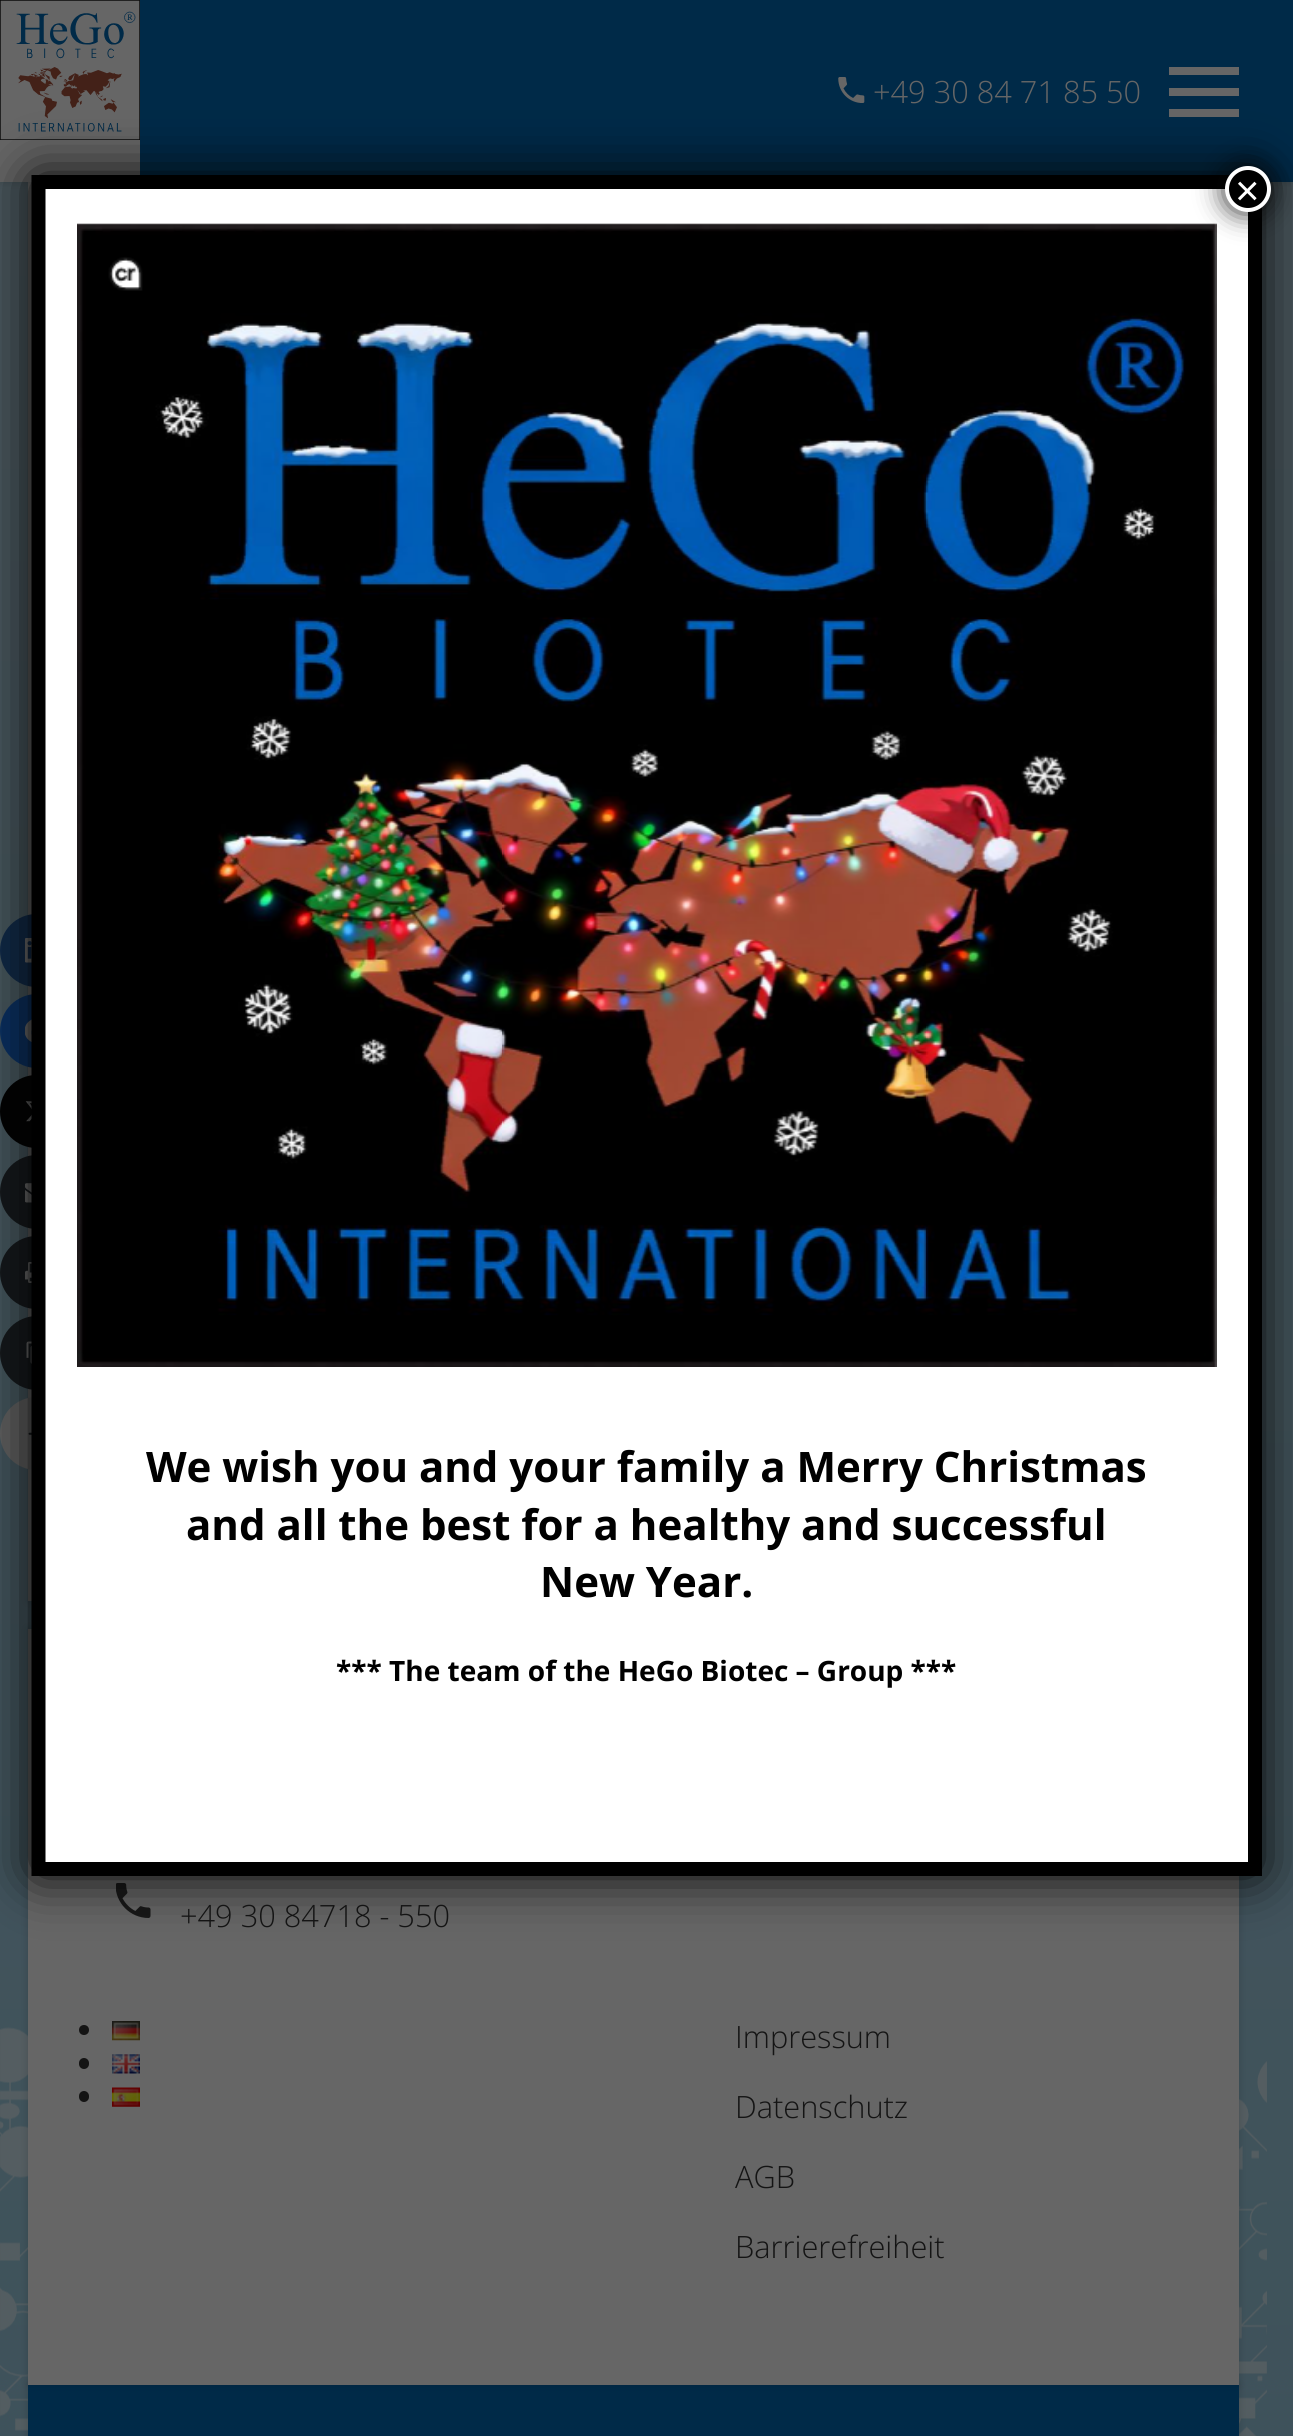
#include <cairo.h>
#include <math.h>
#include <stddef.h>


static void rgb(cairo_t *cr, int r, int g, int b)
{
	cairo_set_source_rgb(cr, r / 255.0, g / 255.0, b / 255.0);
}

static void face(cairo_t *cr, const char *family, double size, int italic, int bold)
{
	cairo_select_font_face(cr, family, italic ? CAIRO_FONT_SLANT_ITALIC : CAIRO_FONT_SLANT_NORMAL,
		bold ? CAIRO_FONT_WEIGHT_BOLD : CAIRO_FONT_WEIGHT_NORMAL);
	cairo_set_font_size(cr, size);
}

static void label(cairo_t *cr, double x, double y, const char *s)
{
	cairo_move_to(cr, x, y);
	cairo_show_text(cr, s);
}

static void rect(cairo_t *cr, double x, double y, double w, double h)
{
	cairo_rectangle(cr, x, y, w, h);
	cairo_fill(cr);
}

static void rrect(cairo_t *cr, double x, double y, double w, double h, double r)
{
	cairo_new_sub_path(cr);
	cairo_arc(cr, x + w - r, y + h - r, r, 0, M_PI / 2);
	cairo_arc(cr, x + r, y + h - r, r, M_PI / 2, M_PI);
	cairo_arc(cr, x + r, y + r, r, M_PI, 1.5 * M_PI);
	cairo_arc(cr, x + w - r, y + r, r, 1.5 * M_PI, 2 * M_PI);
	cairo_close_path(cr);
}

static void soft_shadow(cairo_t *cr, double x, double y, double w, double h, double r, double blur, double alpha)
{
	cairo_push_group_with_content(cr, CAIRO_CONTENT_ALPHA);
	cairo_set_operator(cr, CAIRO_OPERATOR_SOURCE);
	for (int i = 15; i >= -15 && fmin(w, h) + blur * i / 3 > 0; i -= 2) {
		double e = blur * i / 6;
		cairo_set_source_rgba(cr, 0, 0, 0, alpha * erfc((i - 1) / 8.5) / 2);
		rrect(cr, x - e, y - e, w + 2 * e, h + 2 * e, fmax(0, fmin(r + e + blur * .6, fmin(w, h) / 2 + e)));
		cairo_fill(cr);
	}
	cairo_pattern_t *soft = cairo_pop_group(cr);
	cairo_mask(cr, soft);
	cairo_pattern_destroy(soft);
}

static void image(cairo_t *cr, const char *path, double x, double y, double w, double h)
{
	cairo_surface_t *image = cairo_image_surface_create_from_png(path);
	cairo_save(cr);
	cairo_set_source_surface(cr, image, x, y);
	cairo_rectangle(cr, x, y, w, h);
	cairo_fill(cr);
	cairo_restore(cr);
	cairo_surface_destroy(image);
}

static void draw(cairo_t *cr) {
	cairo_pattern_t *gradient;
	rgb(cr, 255, 255, 255);
	cairo_paint(cr);
	gradient = cairo_pattern_create_linear(647, 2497, 647, -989);
	cairo_pattern_add_color_stop_rgba(gradient, 0, 0.243, 0.322, 0.357, 1);
	cairo_pattern_add_color_stop_rgba(gradient, 1, 0.314, 0.353, 0.369, 1);
	cairo_set_source(cr, gradient);
	cairo_pattern_destroy(gradient);
	rect(cr, 0, 182, 1293, 2254);
	rgb(cr, 0, 0, 0);
	soft_shadow(cr, 28, -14, 1211, 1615, 0, 4.5, 0.16);
	cairo_rectangle(cr, 29, -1, 1209, 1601);
	rgb(cr, 102, 102, 102);
	cairo_stroke(cr);
	rect(cr, 30, 182, 2, 1418);
	rgb(cr, 0, 0, 0);
	soft_shadow(cr, 0, 0, 1293, 182, 0, 4.5, 0.16);
	rgb(cr, 0, 42, 72);
	rect(cr, 140, 0, 1153, 182);
	rgb(cr, 102, 102, 102);
	rect(cr, 0, 0, 140, 182);
	image(cr, "image0.png", 0, 0, 140, 140);
	image(cr, "image1.png", 838, 77, 27, 26);
	face(cr, "Open Sans Light", 30.75, 0, 0);
	label(cr, 873, 103, "+49 30 84 71 85 50");
	rect(cr, 1169, 67, 70, 8);
	rect(cr, 1169, 88, 70, 8);
	rect(cr, 1169, 109, 70, 8);
	rgb(cr, 16, 41, 71);
	rrect(cr, 0, 914, 74, 73, 36.5);
	cairo_fill(cr);
	image(cr, "image2.png", 25, 938, 7, 25);
	rgb(cr, 10, 48, 97);
	cairo_arc(cr, 37, 1031, 37, 0, 2 * M_PI);
	cairo_fill(cr);
	image(cr, "image3.png", 25, 1019, 7, 23);
	rgb(cr, 2, 2, 2);
	rrect(cr, 0, 1075, 74, 73, 36.5);
	cairo_fill(cr);
	image(cr, "image4.png", 25, 1101, 7, 21);
	rgb(cr, 20, 24, 27);
	cairo_arc(cr, 37, 1192, 37, 0, 2 * M_PI);
	cairo_fill(cr);
	image(cr, "image5.png", 25, 1183, 7, 20);
	rrect(cr, 0, 1236, 74, 73, 36.5);
	cairo_fill(cr);
	image(cr, "image6.png", 25, 1262, 7, 21);
	cairo_arc(cr, 37, 1353, 37, 0, 2 * M_PI);
	cairo_fill(cr);
	image(cr, "image7.png", 26, 1341, 6, 23);
	rgb(cr, 96, 96, 96);
	rrect(cr, 0, 1397, 74, 73, 36.5);
	cairo_fill(cr);
	image(cr, "image8.png", 28, 1432, 4, 3);
	image(cr, "image14.png", 0, 2027, 1267, 409);
	rgb(cr, 0, 0, 0);
	soft_shadow(cr, 28, 2385, 1211, 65, 0, 4.5, 0.16);
	rgb(cr, 0, 42, 72);
	rect(cr, 28, 2385, 1211, 51);
	rgb(cr, 0, 0, 0);
	soft_shadow(cr, 28, 1629, 1211, 756, 0, 4.5, 0.16);
	rgb(cr, 102, 102, 102);
	rect(cr, 28, 1629, 1211, 756);
	image(cr, "image10.png", 116, 1883, 35, 35);
	rgb(cr, 2, 2, 2);
	soft_shadow(cr, 32, 175, 1230, 1701, 5, 26, 1);
	rgb(cr, 255, 255, 255);
	rect(cr, 45, 189, 1203, 1673);
	cairo_new_path(cr);
	cairo_move_to(cr, 38.5, 182);
	cairo_line_to(cr, 1255, 182);
	cairo_line_to(cr, 1255, 1869);
	cairo_line_to(cr, 38.5, 1869);
	cairo_close_path(cr);
	rgb(cr, 0, 0, 0);
	cairo_set_line_width(cr, 14);
	cairo_stroke(cr);
	image(cr, "image9.png", 77, 223, 1140, 1144);
	rgb(cr, 2, 2, 2);
	soft_shadow(cr, 1223, 165, 49, 49, 24.5, 13, 0.75);
	rgb(cr, 0, 0, 0);
	cairo_arc(cr, 1248, 189, 21, 0, 2 * M_PI);
	cairo_fill_preserve(cr);
	rgb(cr, 255, 255, 255);
	cairo_set_line_width(cr, 4);
	cairo_stroke(cr);
	face(cr, "Liberation Sans", 42, 0, 0);
	label(cr, 1235, 205, "×");
	face(cr, "Open Sans", 42, 0, 1);
	rgb(cr, 0, 0, 0);
	label(cr, 146, 1482, "We wish you and your family a Merry Christmas");
	label(cr, 186, 1540, "and all the best for a healthy and successful");
	label(cr, 540, 1597, "New Year.");
	face(cr, "Open Sans", 28, 0, 1);
	label(cr, 336, 1681, "*** The team of the HeGo Biotec – Group ***");
	face(cr, "Open Sans Light", 30.75, 0, 0);
	rgb(cr, 20, 20, 20);
	label(cr, 180, 1927, "+49 30 84718 - 550");
	cairo_new_path(cr);
	cairo_arc(cr, 84, 2030, 5, 0, 2 * M_PI);
	cairo_fill(cr);
	image(cr, "image11.png", 112, 2021, 28, 20);
	rrect(cr, 79, 2058, 10, 11, 5);
	cairo_fill(cr);
	image(cr, "image12.png", 112, 2054, 28, 20);
	rrect(cr, 79, 2091, 10, 11, 5);
	cairo_fill(cr);
	image(cr, "image13.png", 112, 2087, 28, 20);
	label(cr, 735, 2048, "Impressum");
	label(cr, 735, 2118, "Datenschutz");
	label(cr, 735, 2188, "AGB");
	label(cr, 735, 2258, "Barrierefreiheit");
}

int main(void) {
	cairo_surface_t *surface = cairo_image_surface_create(CAIRO_FORMAT_RGB24, 1293, 2436);
	cairo_t *cr = cairo_create(surface);
	cairo_font_options_t *options = cairo_font_options_create();
	cairo_font_options_set_hint_metrics(options, CAIRO_HINT_METRICS_OFF);
	cairo_font_options_set_hint_style(options, CAIRO_HINT_STYLE_NONE);
	cairo_set_font_options(cr, options);
	cairo_set_miter_limit(cr, 4);
	draw(cr);
	cairo_surface_write_to_png(surface, "render.png");
	cairo_font_options_destroy(options);
	cairo_destroy(cr);
	cairo_surface_destroy(surface);
	return 0;
}
